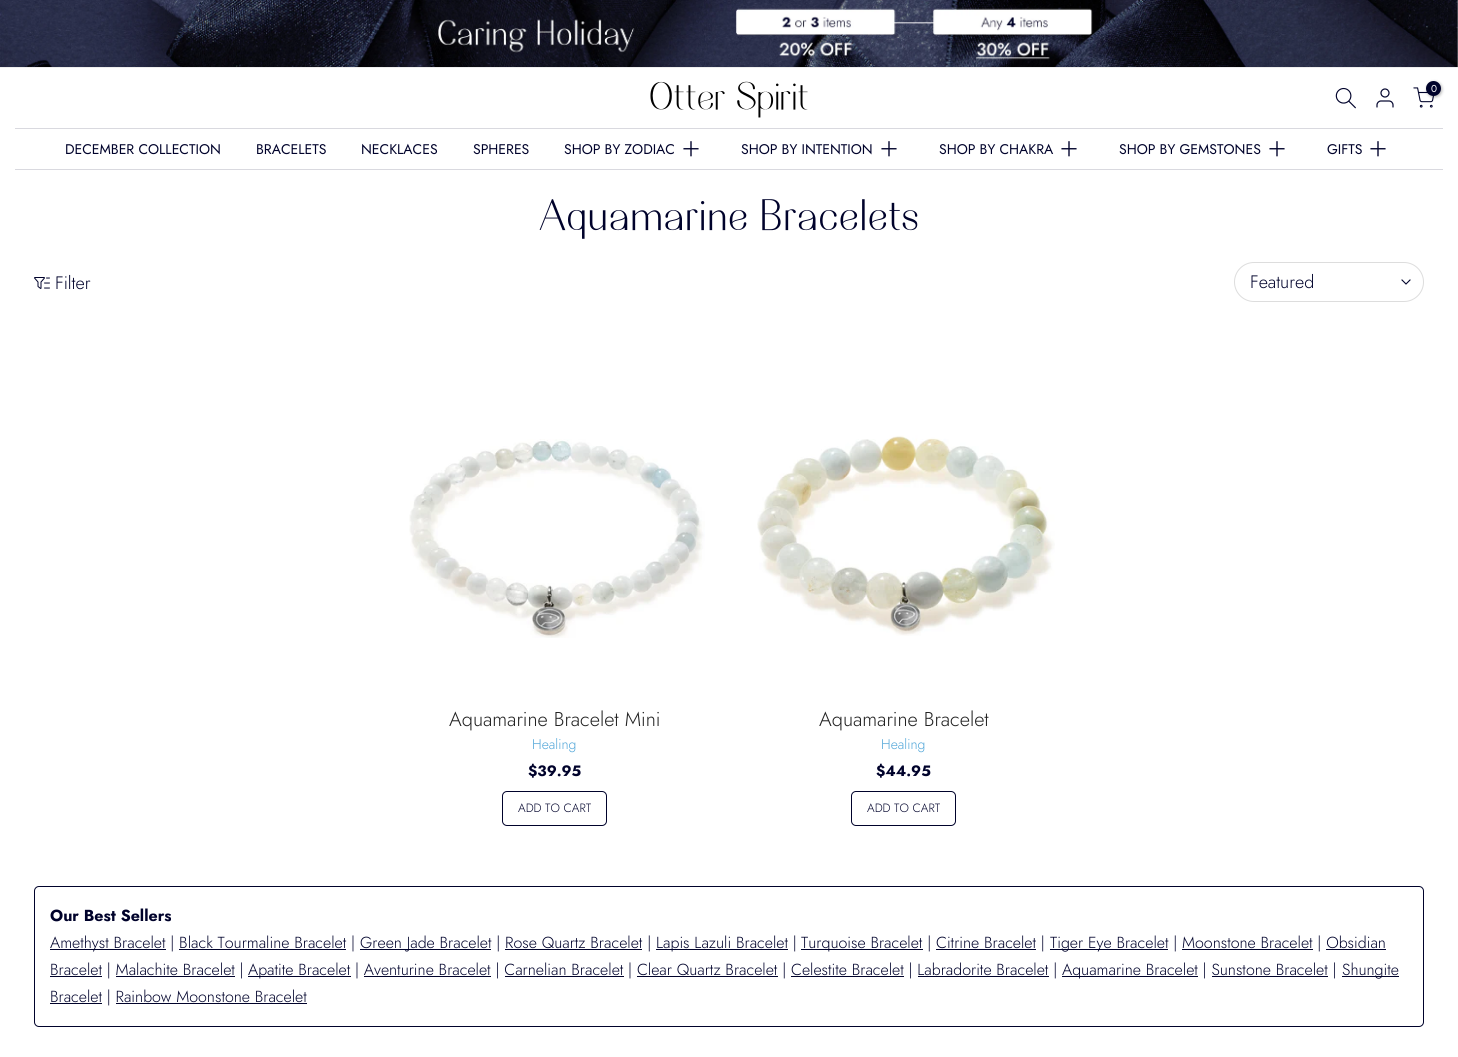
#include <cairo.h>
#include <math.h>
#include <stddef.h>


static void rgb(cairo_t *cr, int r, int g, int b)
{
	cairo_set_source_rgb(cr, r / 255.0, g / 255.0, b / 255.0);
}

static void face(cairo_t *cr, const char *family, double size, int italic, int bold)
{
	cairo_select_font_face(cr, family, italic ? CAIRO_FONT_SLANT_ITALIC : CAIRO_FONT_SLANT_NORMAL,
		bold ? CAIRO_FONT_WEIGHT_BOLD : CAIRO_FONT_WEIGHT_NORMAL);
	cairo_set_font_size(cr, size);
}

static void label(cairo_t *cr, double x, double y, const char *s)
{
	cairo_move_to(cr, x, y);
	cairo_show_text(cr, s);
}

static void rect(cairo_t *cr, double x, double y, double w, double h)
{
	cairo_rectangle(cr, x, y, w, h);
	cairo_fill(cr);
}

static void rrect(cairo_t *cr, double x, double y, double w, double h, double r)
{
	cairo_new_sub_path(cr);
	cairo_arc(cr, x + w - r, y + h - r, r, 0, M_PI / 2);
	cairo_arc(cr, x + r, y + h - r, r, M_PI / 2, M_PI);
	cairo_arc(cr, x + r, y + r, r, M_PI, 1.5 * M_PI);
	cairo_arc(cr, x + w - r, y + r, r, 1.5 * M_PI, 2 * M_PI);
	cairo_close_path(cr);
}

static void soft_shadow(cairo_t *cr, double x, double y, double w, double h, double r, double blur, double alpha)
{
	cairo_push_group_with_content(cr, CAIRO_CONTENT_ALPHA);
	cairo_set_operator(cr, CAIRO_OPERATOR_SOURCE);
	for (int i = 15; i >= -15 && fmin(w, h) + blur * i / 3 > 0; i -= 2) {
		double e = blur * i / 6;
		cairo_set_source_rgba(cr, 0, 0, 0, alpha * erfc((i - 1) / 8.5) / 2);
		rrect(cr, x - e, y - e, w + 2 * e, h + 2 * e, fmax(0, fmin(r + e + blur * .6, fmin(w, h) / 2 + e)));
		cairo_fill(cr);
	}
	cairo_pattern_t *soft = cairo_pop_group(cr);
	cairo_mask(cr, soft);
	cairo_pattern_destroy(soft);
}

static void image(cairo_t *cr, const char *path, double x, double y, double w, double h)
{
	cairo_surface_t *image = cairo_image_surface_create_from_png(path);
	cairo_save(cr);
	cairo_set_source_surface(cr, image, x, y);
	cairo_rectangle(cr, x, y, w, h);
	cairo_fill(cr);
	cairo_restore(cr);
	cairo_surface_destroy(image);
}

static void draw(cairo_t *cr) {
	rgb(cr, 255, 255, 255);
	cairo_paint(cr);
	rgb(cr, 238, 238, 238);
	rect(cr, 0, 67, 1458, 1);
	image(cr, "image0.png", 0, 0, 1458, 67);
	rgb(cr, 217, 217, 223);
	rect(cr, 15, 128, 1428, 1);
	image(cr, "image1.png", 650, 81, 158, 37);
	image(cr, "image2.png", 1335, 87, 21, 22);
	image(cr, "image3.png", 1376, 88, 18, 20);
	image(cr, "image4.png", 1413, 87, 22, 21);
	rgb(cr, 0, 0, 0);
	soft_shadow(cr, 1427, 82, 15, 15, 7.5, 1.5, 0.3);
	rgb(cr, 0, 2, 43);
	cairo_arc(cr, 1433.5, 88.5, 7.5, 0, 2 * M_PI);
	cairo_fill(cr);
	face(cr, "Jost", 10, 0, 0);
	rgb(cr, 255, 255, 255);
	label(cr, 1431, 92, "0");
	rgb(cr, 217, 217, 223);
	rect(cr, 15, 169, 1428, 1);
	face(cr, "Jost", 14, 0, 0);
	rgb(cr, 0, 2, 43);
	label(cr, 65, 154, "DECEMBER COLLECTION");
	label(cr, 256, 154, "BRACELETS");
	label(cr, 361, 154, "NECKLACES");
	label(cr, 473, 154, "SPHERES");
	label(cr, 564, 154, "SHOP BY ZODIAC");
	image(cr, "image5.png", 683, 141, 16, 16);
	label(cr, 741, 154, "SHOP BY INTENTION");
	image(cr, "image5.png", 881, 141, 16, 16);
	label(cr, 939, 154, "SHOP BY CHAKRA");
	image(cr, "image5.png", 1061, 141, 16, 16);
	label(cr, 1119, 154, "SHOP BY GEMSTONES");
	image(cr, "image5.png", 1269, 141, 16, 16);
	label(cr, 1327, 154, "GIFTS");
	image(cr, "image5.png", 1370, 141, 16, 16);
	face(cr, "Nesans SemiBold", 44, 0, 0);
	label(cr, 539, 230, "Aquamarine Bracelets");
	image(cr, "image6.png", 34, 277, 16, 12);
	face(cr, "Jost Light", 18, 0, 0);
	label(cr, 55, 289, "Filter");
	rrect(cr, 1234.5, 262.5, 189, 39, 19.5);
	rgb(cr, 221, 221, 221);
	cairo_set_line_width(cr, 1);
	cairo_stroke(cr);
	rgb(cr, 0, 2, 43);
	label(cr, 1250, 288, "Featured");
	cairo_new_path(cr);
	cairo_move_to(cr, 1410, 280);
	cairo_line_to(cr, 1406, 284);
	cairo_line_to(cr, 1402, 280);
	cairo_set_line_width(cr, 1.1);
	cairo_set_line_cap(cr, CAIRO_LINE_CAP_SQUARE);
	cairo_stroke(cr);
	image(cr, "image7.png", 409, 439, 296, 199);
	face(cr, "Jost Light", 20, 0, 0);
	rgb(cr, 34, 34, 34);
	label(cr, 449, 726, "Aquamarine Bracelet Mini");
	face(cr, "Jost Light", 14, 0, 0);
	rgb(cr, 79, 165, 216);
	label(cr, 532, 749, "Healing");
	face(cr, "Jost", 15, 0, 1);
	rgb(cr, 0, 2, 43);
	label(cr, 528, 776, "$39.95");
	rrect(cr, 502.5, 791.5, 104, 34, 4.5);
	cairo_set_line_width(cr, 1);
	cairo_set_line_cap(cr, CAIRO_LINE_CAP_BUTT);
	cairo_stroke(cr);
	face(cr, "Jost Light", 12, 0, 0);
	label(cr, 518, 812, "ADD TO CART");
	image(cr, "image8.png", 757, 435, 298, 201);
	face(cr, "Jost Light", 20, 0, 0);
	rgb(cr, 34, 34, 34);
	label(cr, 819, 726, "Aquamarine Bracelet");
	face(cr, "Jost Light", 14, 0, 0);
	rgb(cr, 79, 165, 216);
	label(cr, 881, 749, "Healing");
	face(cr, "Jost", 15, 0, 1);
	rgb(cr, 0, 2, 43);
	label(cr, 876, 776, "$44.95");
	rrect(cr, 851.5, 791.5, 104, 34, 4.5);
	cairo_stroke(cr);
	face(cr, "Jost Light", 12, 0, 0);
	label(cr, 867, 812, "ADD TO CART");
	rrect(cr, 34.5, 886.5, 1389, 140, 4.5);
	cairo_stroke(cr);
	face(cr, "Jost", 16, 0, 1);
	label(cr, 50, 921, "Our Best Sellers");
	rect(cr, 50, 949, 116, 1);
	face(cr, "Jost Light", 16, 0, 0);
	label(cr, 50, 948, "Amethyst Bracelet | Black Tourmaline Bracelet |");
	rect(cr, 360, 949, 131, 1);
	label(cr, 360, 948, "Green Jade Bracelet | Rose Quartz Bracelet |");
	rect(cr, 656, 949, 132, 1);
	label(cr, 656, 948, "Lapis Lazuli Bracelet |");
	rect(cr, 801, 949, 122, 1);
	label(cr, 801, 948, "Turquoise Bracelet | Citrine Bracelet |");
	rect(cr, 1050, 949, 118, 1);
	label(cr, 1050, 948, "Tiger Eye Bracelet | Moonstone Bracelet | Obsidian");
	rect(cr, 179, 949, 167, 1);
	rect(cr, 505, 949, 137, 1);
	rect(cr, 936, 949, 100, 1);
	rect(cr, 1182, 949, 131, 1);
	rect(cr, 50, 976, 52, 1);
	label(cr, 50, 975, "Bracelet | Malachite Bracelet |");
	rect(cr, 1326, 949, 60, 1);
	rect(cr, 248, 976, 103, 1);
	label(cr, 248, 975, "Apatite Bracelet | Aventurine Bracelet | Carnelian Bracelet | Clear Quartz Bracelet | Celestite Bracelet | Labradorite Bracelet |");
	rect(cr, 1062, 976, 136, 1);
	label(cr, 1062, 975, "Aquamarine Bracelet | Sunstone Bracelet |");
	rect(cr, 1342, 976, 57, 1);
	label(cr, 1342, 975, "Shungite");
	rect(cr, 116, 976, 119, 1);
	rect(cr, 364, 976, 127, 1);
	rect(cr, 505, 976, 119, 1);
	rect(cr, 637, 976, 141, 1);
	rect(cr, 791, 976, 113, 1);
	rect(cr, 918, 976, 131, 1);
	rect(cr, 1212, 976, 116, 1);
	rect(cr, 50, 1003, 52, 1);
	label(cr, 50, 1002, "Bracelet | Rainbow Moonstone Bracelet");
	rect(cr, 116, 1003, 191, 1);
}

int main(void) {
	cairo_surface_t *surface = cairo_image_surface_create(CAIRO_FORMAT_RGB24, 1458, 1057);
	cairo_t *cr = cairo_create(surface);
	cairo_font_options_t *options = cairo_font_options_create();
	cairo_font_options_set_hint_metrics(options, CAIRO_HINT_METRICS_OFF);
	cairo_font_options_set_hint_style(options, CAIRO_HINT_STYLE_NONE);
	cairo_set_font_options(cr, options);
	cairo_set_miter_limit(cr, 4);
	draw(cr);
	cairo_surface_write_to_png(surface, "render.png");
	cairo_font_options_destroy(options);
	cairo_destroy(cr);
	cairo_surface_destroy(surface);
	return 0;
}
